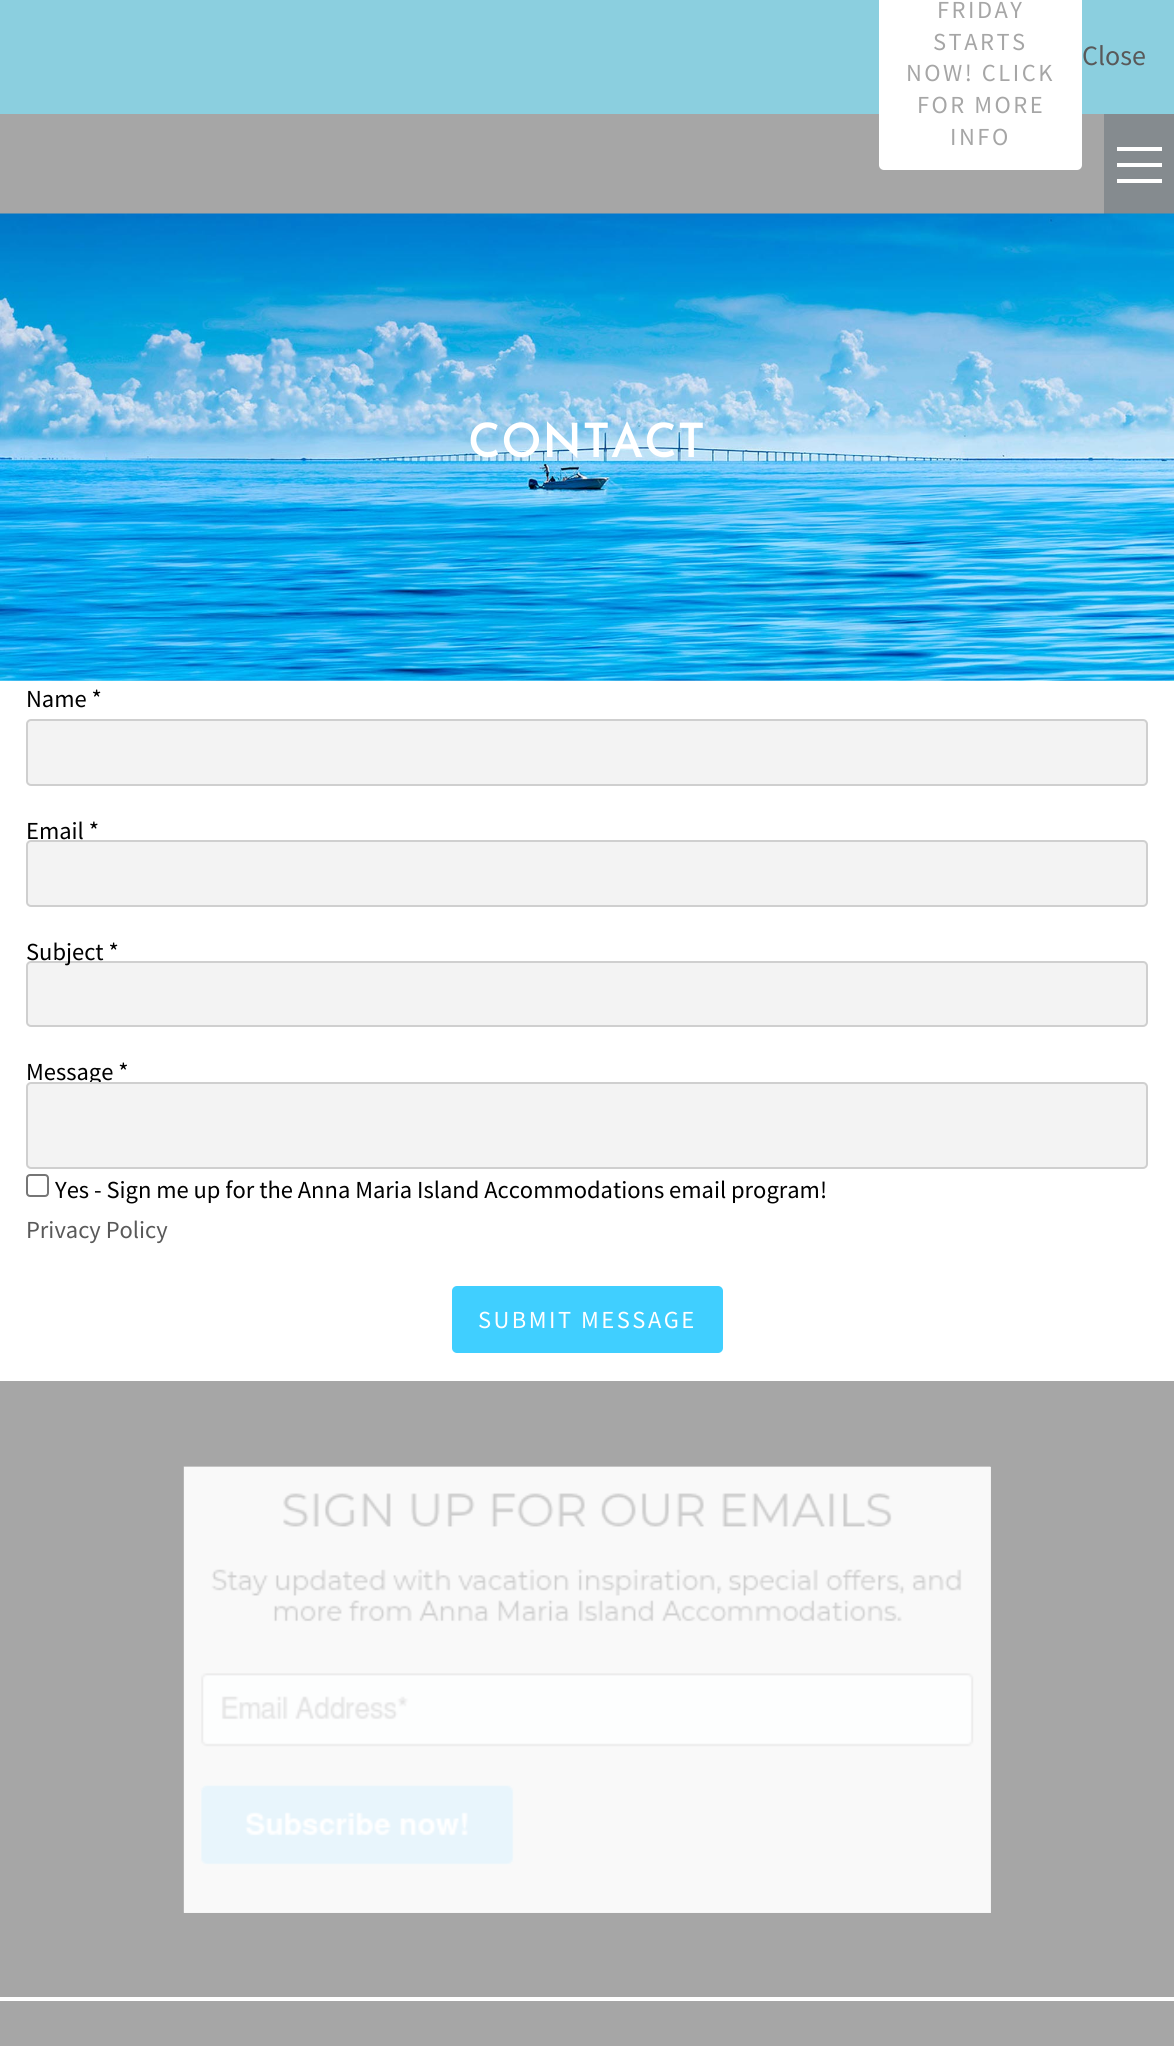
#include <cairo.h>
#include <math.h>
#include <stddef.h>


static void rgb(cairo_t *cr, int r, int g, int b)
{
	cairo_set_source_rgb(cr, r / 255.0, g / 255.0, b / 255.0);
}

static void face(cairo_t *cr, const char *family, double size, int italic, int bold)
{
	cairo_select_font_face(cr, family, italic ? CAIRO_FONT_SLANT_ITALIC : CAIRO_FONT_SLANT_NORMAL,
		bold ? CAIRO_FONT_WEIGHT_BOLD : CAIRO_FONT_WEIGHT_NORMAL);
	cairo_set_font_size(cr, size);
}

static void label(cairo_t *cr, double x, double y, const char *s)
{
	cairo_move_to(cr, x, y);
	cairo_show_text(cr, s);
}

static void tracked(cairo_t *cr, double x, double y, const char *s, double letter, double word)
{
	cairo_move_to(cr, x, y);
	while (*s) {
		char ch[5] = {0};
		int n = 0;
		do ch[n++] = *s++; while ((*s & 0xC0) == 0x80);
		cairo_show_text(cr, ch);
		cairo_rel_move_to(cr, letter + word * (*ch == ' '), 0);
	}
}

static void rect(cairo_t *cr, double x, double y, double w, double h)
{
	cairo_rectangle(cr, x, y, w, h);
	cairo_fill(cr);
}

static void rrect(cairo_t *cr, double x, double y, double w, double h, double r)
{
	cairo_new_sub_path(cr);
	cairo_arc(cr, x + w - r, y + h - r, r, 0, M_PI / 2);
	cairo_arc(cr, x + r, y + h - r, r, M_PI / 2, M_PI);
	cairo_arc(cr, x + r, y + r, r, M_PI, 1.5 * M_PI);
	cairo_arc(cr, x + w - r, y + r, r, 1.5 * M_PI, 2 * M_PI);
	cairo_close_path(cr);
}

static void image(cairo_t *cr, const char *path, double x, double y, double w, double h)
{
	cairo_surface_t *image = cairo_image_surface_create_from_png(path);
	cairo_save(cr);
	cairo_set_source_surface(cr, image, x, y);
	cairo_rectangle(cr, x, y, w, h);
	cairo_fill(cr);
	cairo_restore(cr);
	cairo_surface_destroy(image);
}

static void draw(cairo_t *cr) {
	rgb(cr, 255, 255, 255);
	cairo_paint(cr);
	rgb(cr, 139, 207, 223);
	rect(cr, 0, 0, 1174, 114);
	rgb(cr, 166, 166, 166);
	rect(cr, 0, 114, 1104, 100);
	rgb(cr, 255, 255, 255);
	rrect(cr, 879, -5, 203, 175, 5);
	cairo_fill(cr);
	face(cr, "Source Sans Pro", 24.5, 0, 0);
	rgb(cr, 166, 166, 166);
	tracked(cr, 937, 18, "FRIDAY", 2.5, 0);
	tracked(cr, 933, 50, "STARTS", 2.5, 0);
	tracked(cr, 906, 81, "NOW! CLICK", 2.5, 0);
	tracked(cr, 917, 113, "FOR MORE", 2.5, 0);
	tracked(cr, 950, 145, "INFO", 2.5, 0);
	face(cr, "Source Sans Pro", 28, 0, 0);
	rgb(cr, 89, 89, 89);
	label(cr, 1082, 65, "Close");
	rgb(cr, 133, 139, 143);
	rect(cr, 1104, 114, 70, 100);
	rgb(cr, 255, 255, 255);
	rect(cr, 1117, 163, 45, 4);
	rect(cr, 1117, 147, 45, 4);
	rect(cr, 1117, 179, 45, 4);
	image(cr, "image0.png", 0, 213, 1174, 468);
	face(cr, "Josefin Sans SemiBold", 47.25, 0, 0);
	tracked(cr, 468, 457, "CONTACT", 0.5, 0);
	face(cr, "Source Sans Pro", 24.5, 0, 0);
	rgb(cr, 0, 0, 0);
	label(cr, 26, 707, "Name *");
	rgb(cr, 243, 243, 243);
	rrect(cr, 26, 719, 1122, 67, 5);
	cairo_fill(cr);
	rrect(cr, 27, 720, 1120, 65, 4);
	cairo_set_source_rgba(cr, 0, 0, 0, 0.15);
	cairo_stroke(cr);
	rgb(cr, 0, 0, 0);
	label(cr, 26, 839, "Email *");
	rgb(cr, 243, 243, 243);
	rrect(cr, 26, 840, 1122, 67, 5);
	cairo_fill(cr);
	rrect(cr, 27, 841, 1120, 65, 4);
	cairo_set_source_rgba(cr, 0, 0, 0, 0.15);
	cairo_stroke(cr);
	rgb(cr, 243, 243, 243);
	rrect(cr, 26, 961, 1122, 66, 5);
	cairo_fill(cr);
	rrect(cr, 27, 962, 1120, 64, 4);
	cairo_set_source_rgba(cr, 0, 0, 0, 0.15);
	cairo_stroke(cr);
	rgb(cr, 0, 0, 0);
	label(cr, 26, 960, "Subject *");
	label(cr, 26, 1080, "Message *");
	rgb(cr, 243, 243, 243);
	rrect(cr, 26, 1082, 1122, 87, 5);
	cairo_fill(cr);
	rrect(cr, 27, 1083, 1120, 85, 4);
	cairo_set_source_rgba(cr, 0, 0, 0, 0.15);
	cairo_stroke(cr);
	rrect(cr, 27, 1175, 21, 21, 3);
	rgb(cr, 118, 118, 118);
	cairo_stroke(cr);
	rgb(cr, 0, 0, 0);
	label(cr, 55, 1198, "Yes - Sign me up for the Anna Maria Island Accommodations email program!");
	rgb(cr, 89, 89, 89);
	label(cr, 26, 1238, "Privacy Policy");
	rgb(cr, 64, 207, 255);
	rrect(cr, 452, 1286, 271, 67, 5);
	cairo_fill(cr);
	rgb(cr, 255, 255, 255);
	tracked(cr, 478, 1328, "SUBMIT MESSAGE", 2.5, 0);
	rgb(cr, 166, 166, 166);
	rect(cr, 0, 1381, 1174, 665);
	rgb(cr, 237, 237, 237);
	rect(cr, 184, 1467, 807, 446);
	rgb(cr, 255, 255, 255);
	rect(cr, 0, 1997, 1174, 4);
	image(cr, "image1.png", 183, 1466, 808, 447);
}

int main(void) {
	cairo_surface_t *surface = cairo_image_surface_create(CAIRO_FORMAT_RGB24, 1174, 2046);
	cairo_t *cr = cairo_create(surface);
	cairo_font_options_t *options = cairo_font_options_create();
	cairo_font_options_set_hint_metrics(options, CAIRO_HINT_METRICS_OFF);
	cairo_font_options_set_hint_style(options, CAIRO_HINT_STYLE_NONE);
	cairo_set_font_options(cr, options);
	cairo_set_miter_limit(cr, 4);
	draw(cr);
	cairo_surface_write_to_png(surface, "render.png");
	cairo_font_options_destroy(options);
	cairo_destroy(cr);
	cairo_surface_destroy(surface);
	return 0;
}
